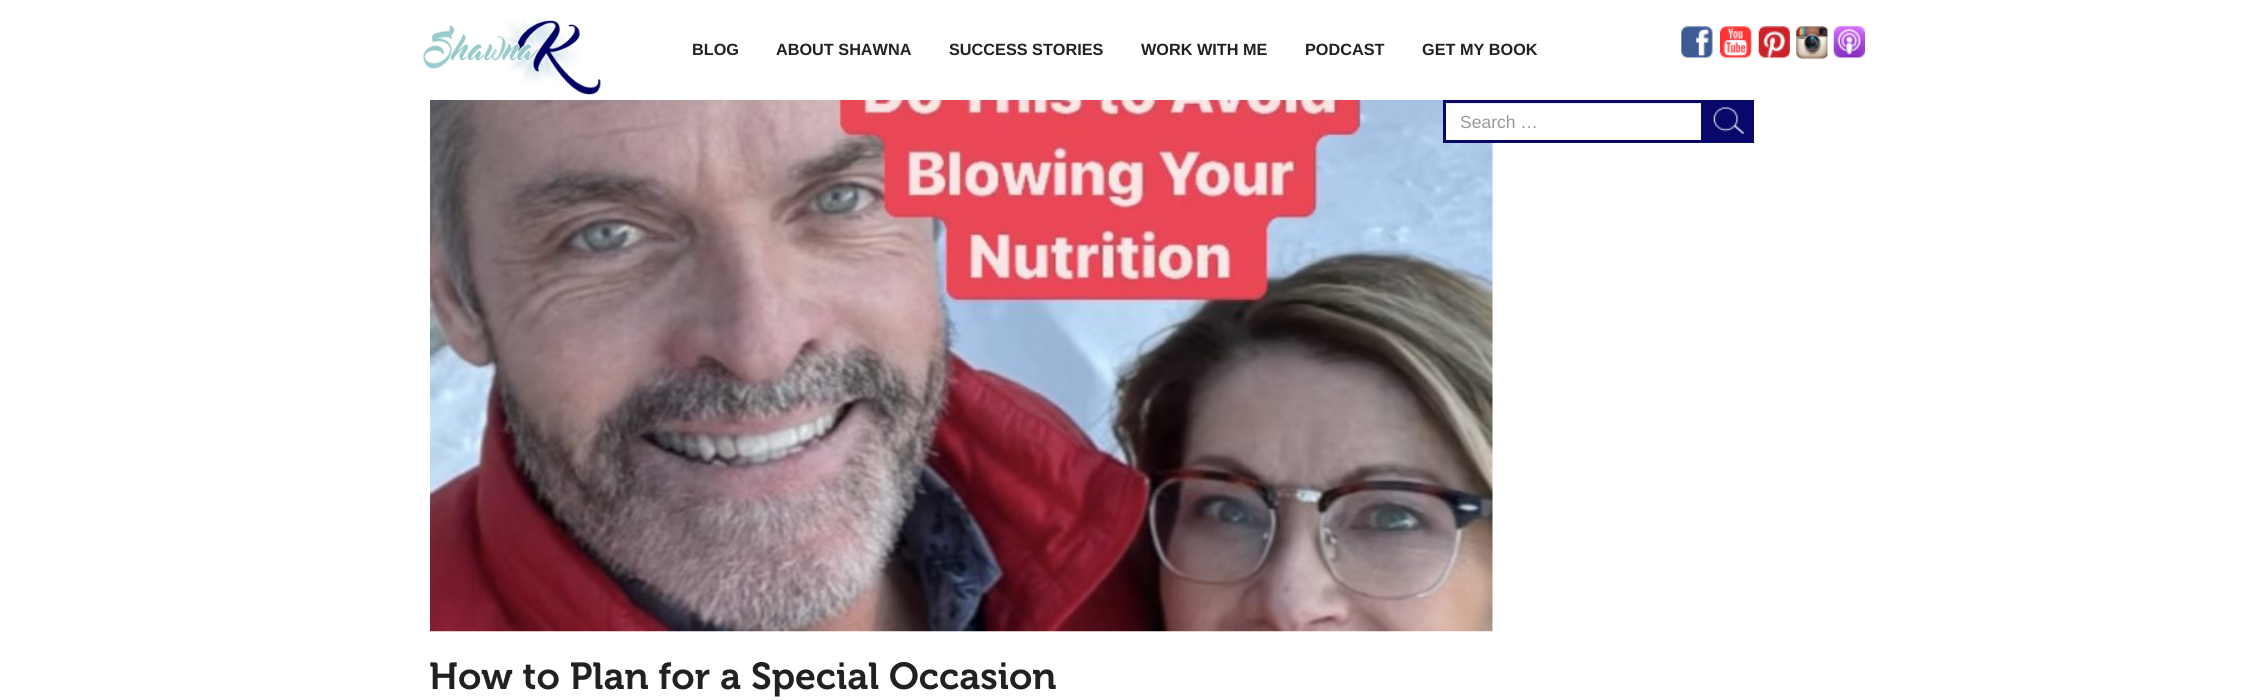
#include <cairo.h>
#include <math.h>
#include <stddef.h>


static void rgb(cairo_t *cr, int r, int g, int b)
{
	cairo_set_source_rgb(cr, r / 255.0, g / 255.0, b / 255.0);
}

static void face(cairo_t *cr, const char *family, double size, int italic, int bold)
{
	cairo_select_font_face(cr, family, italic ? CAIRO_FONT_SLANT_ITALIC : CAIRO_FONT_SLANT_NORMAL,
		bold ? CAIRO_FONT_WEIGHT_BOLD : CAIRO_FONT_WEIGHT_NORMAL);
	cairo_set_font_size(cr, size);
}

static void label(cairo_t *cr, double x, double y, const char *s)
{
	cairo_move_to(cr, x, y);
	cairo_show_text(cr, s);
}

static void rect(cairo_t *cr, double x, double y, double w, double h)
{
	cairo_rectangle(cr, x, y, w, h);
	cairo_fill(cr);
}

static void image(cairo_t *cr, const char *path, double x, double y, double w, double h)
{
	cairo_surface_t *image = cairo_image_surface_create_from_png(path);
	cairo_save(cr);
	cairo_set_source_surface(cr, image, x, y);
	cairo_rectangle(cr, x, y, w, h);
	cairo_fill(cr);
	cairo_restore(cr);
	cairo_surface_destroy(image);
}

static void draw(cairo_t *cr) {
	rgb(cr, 255, 255, 255);
	cairo_paint(cr);
	image(cr, "image0.png", 423, 0, 178, 95);
	face(cr, "Liberation Sans", 16.25, 0, 1);
	rgb(cr, 33, 33, 33);
	label(cr, 692, 55, "BLOG");
	label(cr, 776, 55, "ABOUT SHAWNA");
	label(cr, 949, 55, "SUCCESS STORIES");
	label(cr, 1141, 55, "WORK WITH ME");
	label(cr, 1305, 55, "PODCAST");
	label(cr, 1422, 55, "GET MY BOOK");
	image(cr, "image1.png", 1681, 26, 32, 32);
	image(cr, "image2.png", 1720, 26, 32, 32);
	image(cr, "image3.png", 1758, 26, 32, 32);
	image(cr, "image4.png", 1796, 26, 32, 33);
	image(cr, "image5.png", 1833, 26, 32, 32);
	image(cr, "image7.png", 430, 100, 1063, 532);
	rgb(cr, 255, 255, 255);
	rect(cr, 1446, 104, 47, 36);
	rgb(cr, 236, 236, 236);
	rect(cr, 1445, 103, 256, 1);
	cairo_rectangle(cr, 1444.5, 101.5, 258, 40);
	rgb(cr, 8, 8, 107);
	cairo_set_line_width(cr, 3);
	cairo_stroke(cr);
	face(cr, "Liberation Sans", 17.5, 0, 0);
	rgb(cr, 153, 153, 153);
	label(cr, 1460, 128, "Search …");
	rgb(cr, 8, 8, 107);
	rect(cr, 1704, 100, 50, 43);
	image(cr, "image6.png", 1713, 107, 31, 27);
	face(cr, "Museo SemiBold", 37.5, 0, 0);
	rgb(cr, 33, 33, 33);
	label(cr, 429, 689, "How to Plan for a Special Occasion");
}

int main(void) {
	cairo_surface_t *surface = cairo_image_surface_create(CAIRO_FORMAT_RGB24, 2246, 700);
	cairo_t *cr = cairo_create(surface);
	cairo_font_options_t *options = cairo_font_options_create();
	cairo_font_options_set_hint_metrics(options, CAIRO_HINT_METRICS_OFF);
	cairo_font_options_set_hint_style(options, CAIRO_HINT_STYLE_NONE);
	cairo_set_font_options(cr, options);
	cairo_set_miter_limit(cr, 4);
	draw(cr);
	cairo_surface_write_to_png(surface, "render.png");
	cairo_font_options_destroy(options);
	cairo_destroy(cr);
	cairo_surface_destroy(surface);
	return 0;
}
